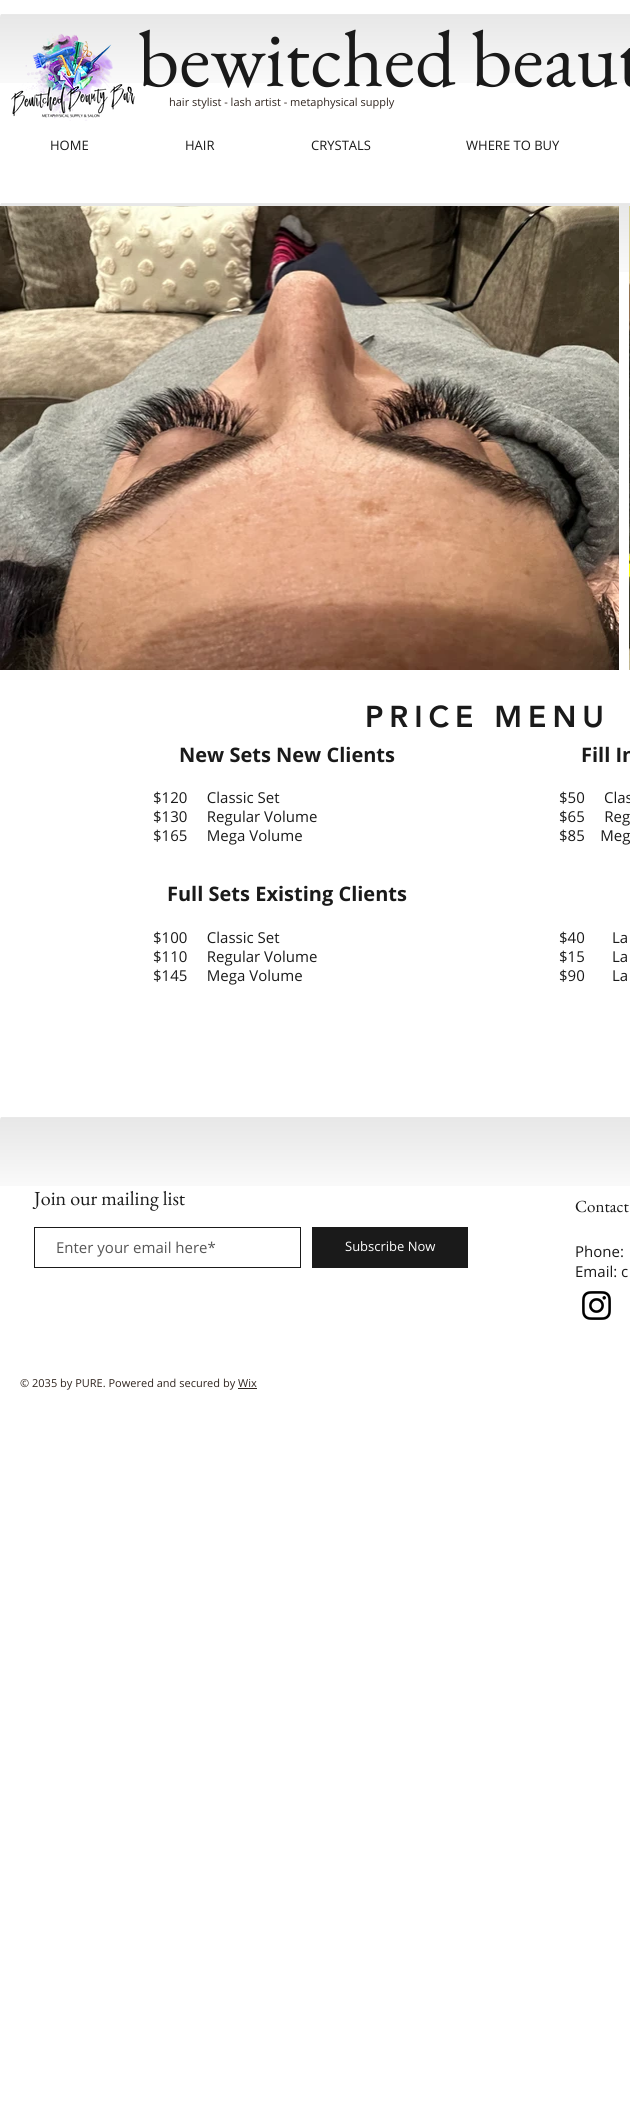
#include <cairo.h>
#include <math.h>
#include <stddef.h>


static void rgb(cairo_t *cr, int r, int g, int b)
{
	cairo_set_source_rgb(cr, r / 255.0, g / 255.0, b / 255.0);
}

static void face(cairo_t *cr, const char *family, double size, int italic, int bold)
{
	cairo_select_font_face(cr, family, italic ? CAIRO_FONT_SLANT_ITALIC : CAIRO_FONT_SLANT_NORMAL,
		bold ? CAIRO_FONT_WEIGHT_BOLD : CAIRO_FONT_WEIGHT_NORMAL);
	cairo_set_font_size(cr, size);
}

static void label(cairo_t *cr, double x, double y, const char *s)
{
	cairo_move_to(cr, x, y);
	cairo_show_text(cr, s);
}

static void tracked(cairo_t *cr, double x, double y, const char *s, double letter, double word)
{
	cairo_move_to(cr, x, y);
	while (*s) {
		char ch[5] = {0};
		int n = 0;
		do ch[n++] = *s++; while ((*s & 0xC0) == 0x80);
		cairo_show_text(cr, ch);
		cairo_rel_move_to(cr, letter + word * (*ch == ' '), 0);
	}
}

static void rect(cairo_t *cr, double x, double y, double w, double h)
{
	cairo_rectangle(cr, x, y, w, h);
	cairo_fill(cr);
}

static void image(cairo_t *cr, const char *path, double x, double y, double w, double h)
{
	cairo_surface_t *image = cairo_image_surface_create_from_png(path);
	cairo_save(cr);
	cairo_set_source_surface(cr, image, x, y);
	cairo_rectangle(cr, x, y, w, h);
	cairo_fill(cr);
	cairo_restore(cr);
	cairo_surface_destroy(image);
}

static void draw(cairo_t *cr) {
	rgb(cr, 255, 255, 255);
	cairo_paint(cr);
	image(cr, "image0.png", 0, 14, 630, 69);
	image(cr, "image1.png", 11, 33, 124, 88);
	face(cr, "EB Garamond", 80, 0, 0);
	rgb(cr, 26, 26, 26);
	label(cr, 138, 86, "bewitched beaut");
	face(cr, "Open Sans", 11, 0, 0);
	rgb(cr, 48, 37, 31);
	label(cr, 169, 106, "hair stylist - lash artist - metaphysical supply");
	face(cr, "Open Sans", 13, 0, 0);
	rgb(cr, 26, 26, 26);
	label(cr, 50, 150, "HOME");
	label(cr, 185, 150, "HAIR");
	label(cr, 311, 150, "CRYSTALS");
	label(cr, 466, 150, "WHERE TO BUY");
	image(cr, "image0.png", 0, 203, 630, 69);
	image(cr, "image2.png", 0, 206, 619, 464);
	image(cr, "image3.png", 629, 206, 1, 464);
	face(cr, "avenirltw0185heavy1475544 Black", 30, 0, 0);
	tracked(cr, 365, 727, "PRICE MENU", 6, 0);
	face(cr, "Open Sans", 20, 0, 1);
	label(cr, 179, 762, "New Sets New Clients");
	face(cr, "Open Sans", 15, 0, 0);
	label(cr, 153, 803, "$120     Classic Set");
	label(cr, 153, 822, "$130     Regular Volume");
	label(cr, 153, 841, "$165     Mega Volume");
	face(cr, "Open Sans", 20, 0, 1);
	label(cr, 581, 762, "Fill In");
	face(cr, "Open Sans", 15, 0, 0);
	label(cr, 559, 803, "$50");
	label(cr, 604, 803, "Clas");
	label(cr, 559, 822, "$65     Reg");
	label(cr, 559, 841, "$85    Meg");
	face(cr, "Open Sans", 20, 0, 1);
	label(cr, 167, 901, "Full Sets Existing Clients");
	face(cr, "Open Sans", 15, 0, 0);
	label(cr, 153, 943, "$100     Classic Set");
	label(cr, 153, 962, "$110     Regular Volume");
	label(cr, 153, 981, "$145     Mega Volume");
	label(cr, 559, 943, "$40");
	label(cr, 612, 943, "La");
	label(cr, 559, 962, "$15");
	label(cr, 612, 962, "La");
	label(cr, 559, 981, "$90       La");
	image(cr, "image0.png", 0, 1117, 630, 69);
	face(cr, "EB Garamond", 20, 0, 0);
	label(cr, 34, 1205, "Join our mailing list");
	cairo_rectangle(cr, 34.5, 1227.5, 266, 40);
	cairo_set_line_width(cr, 1);
	cairo_stroke(cr);
	face(cr, "Open Sans", 15, 0, 0);
	rgb(cr, 86, 86, 86);
	label(cr, 56, 1253, "Enter your email here*");
	rgb(cr, 26, 26, 26);
	rect(cr, 312, 1227, 156, 41);
	face(cr, "Open Sans", 13, 0, 0);
	rgb(cr, 255, 255, 255);
	label(cr, 345, 1251, "Subscribe Now");
	face(cr, "EB Garamond", 17, 0, 0);
	rgb(cr, 26, 26, 26);
	label(cr, 575, 1212, "Contact");
	face(cr, "Open Sans", 15, 0, 0);
	label(cr, 575, 1257, "Phone:");
	label(cr, 575, 1277, "Email: c");
	image(cr, "image4.png", 582, 1291, 29, 29);
	face(cr, "Open Sans", 11, 0, 0);
	rgb(cr, 48, 37, 31);
	label(cr, 20, 1387, "© 2035 by PURE. Powered and secured by Wix");
	rect(cr, 238, 1388, 19, 1);
}

int main(void) {
	cairo_surface_t *surface = cairo_image_surface_create(CAIRO_FORMAT_RGB24, 630, 2117);
	cairo_t *cr = cairo_create(surface);
	cairo_font_options_t *options = cairo_font_options_create();
	cairo_font_options_set_hint_metrics(options, CAIRO_HINT_METRICS_OFF);
	cairo_font_options_set_hint_style(options, CAIRO_HINT_STYLE_NONE);
	cairo_set_font_options(cr, options);
	cairo_set_miter_limit(cr, 4);
	draw(cr);
	cairo_surface_write_to_png(surface, "render.png");
	cairo_font_options_destroy(options);
	cairo_destroy(cr);
	cairo_surface_destroy(surface);
	return 0;
}
